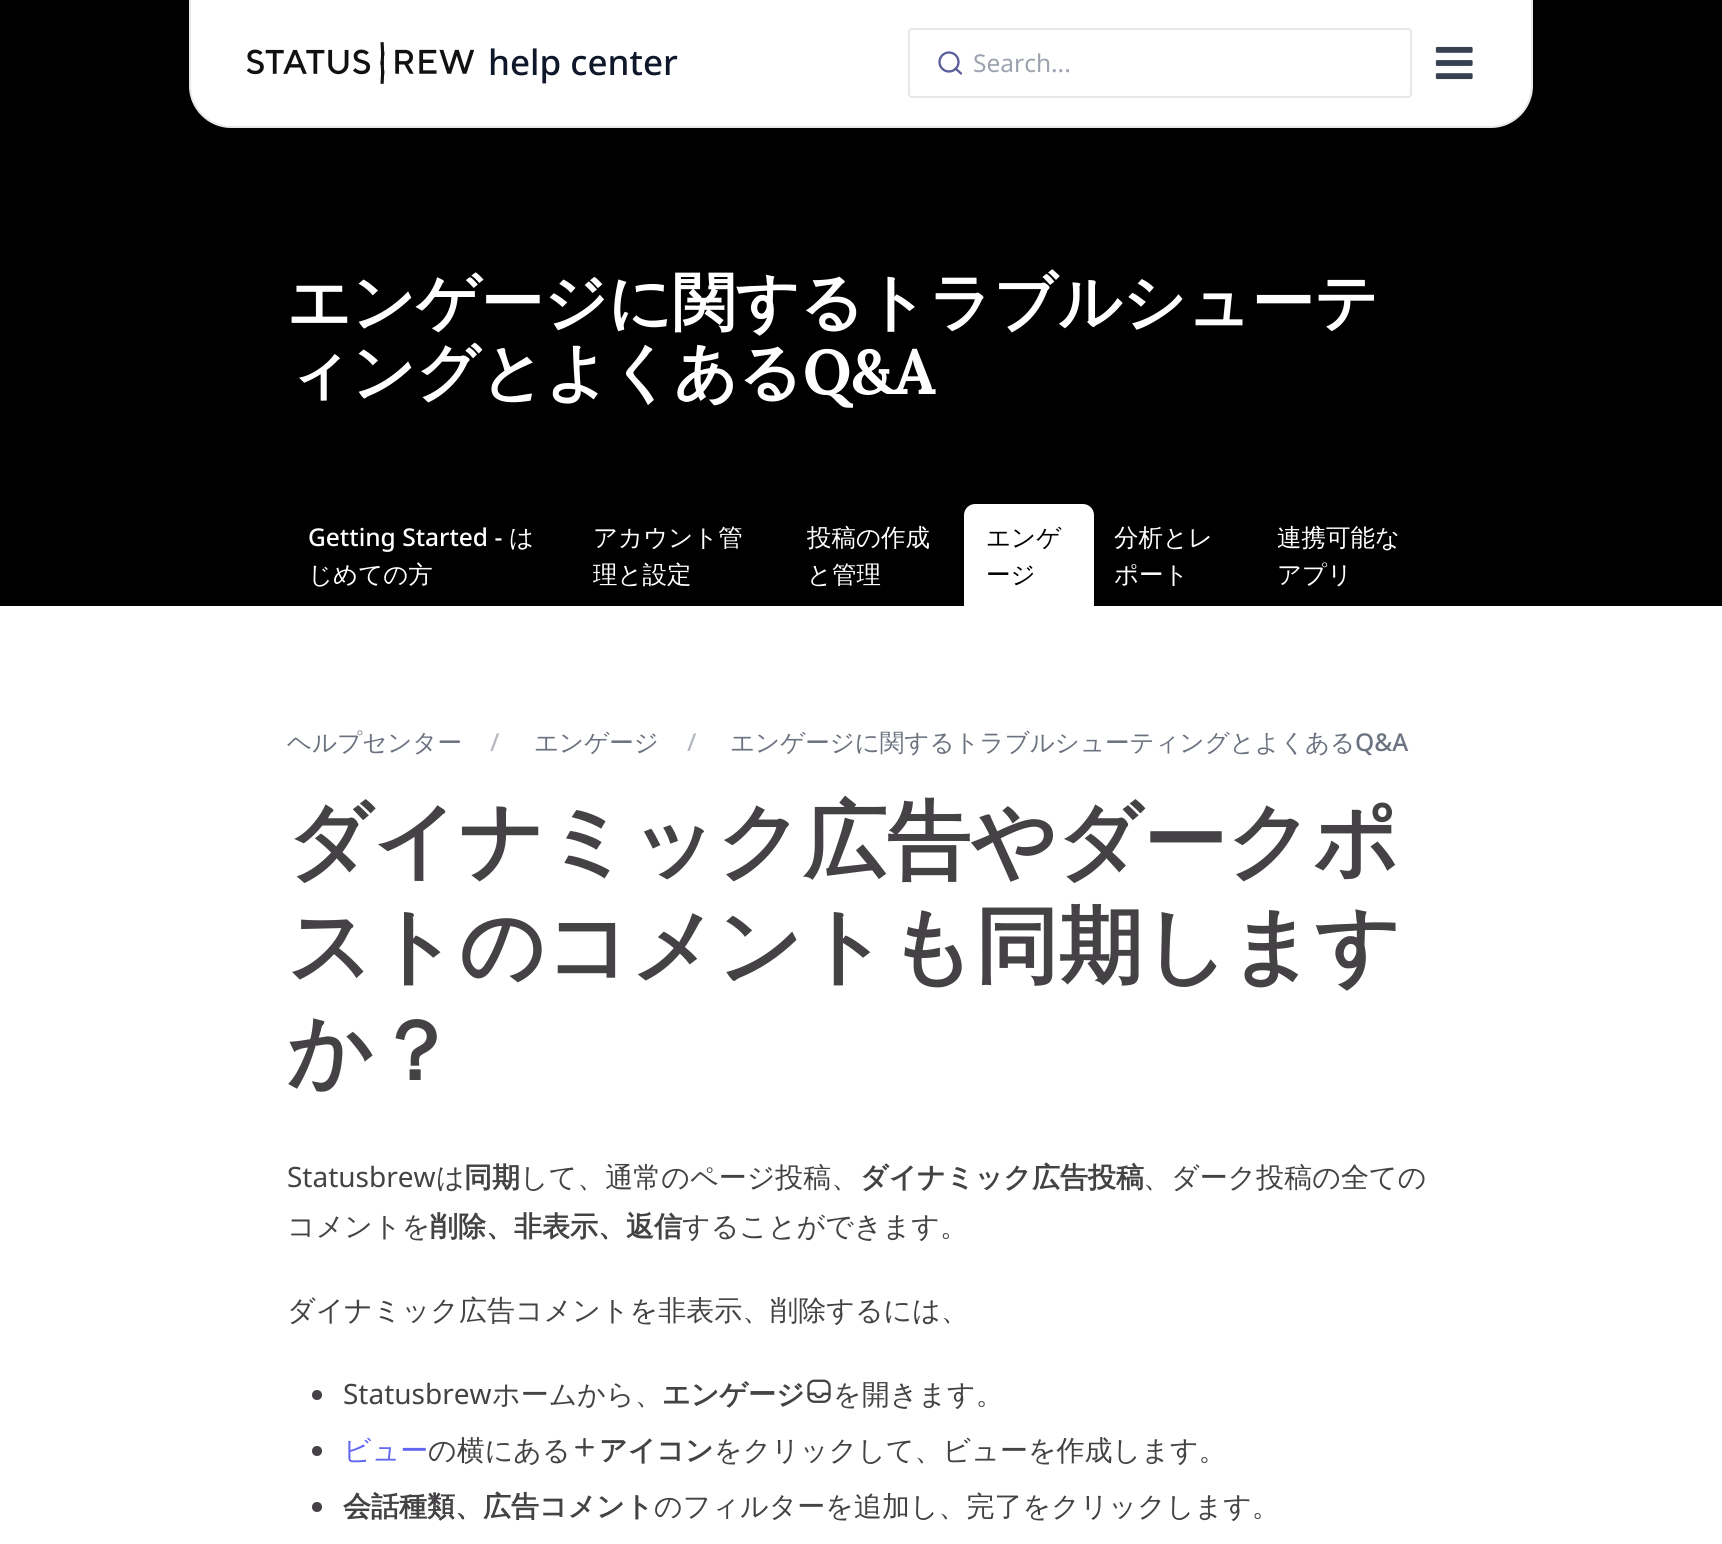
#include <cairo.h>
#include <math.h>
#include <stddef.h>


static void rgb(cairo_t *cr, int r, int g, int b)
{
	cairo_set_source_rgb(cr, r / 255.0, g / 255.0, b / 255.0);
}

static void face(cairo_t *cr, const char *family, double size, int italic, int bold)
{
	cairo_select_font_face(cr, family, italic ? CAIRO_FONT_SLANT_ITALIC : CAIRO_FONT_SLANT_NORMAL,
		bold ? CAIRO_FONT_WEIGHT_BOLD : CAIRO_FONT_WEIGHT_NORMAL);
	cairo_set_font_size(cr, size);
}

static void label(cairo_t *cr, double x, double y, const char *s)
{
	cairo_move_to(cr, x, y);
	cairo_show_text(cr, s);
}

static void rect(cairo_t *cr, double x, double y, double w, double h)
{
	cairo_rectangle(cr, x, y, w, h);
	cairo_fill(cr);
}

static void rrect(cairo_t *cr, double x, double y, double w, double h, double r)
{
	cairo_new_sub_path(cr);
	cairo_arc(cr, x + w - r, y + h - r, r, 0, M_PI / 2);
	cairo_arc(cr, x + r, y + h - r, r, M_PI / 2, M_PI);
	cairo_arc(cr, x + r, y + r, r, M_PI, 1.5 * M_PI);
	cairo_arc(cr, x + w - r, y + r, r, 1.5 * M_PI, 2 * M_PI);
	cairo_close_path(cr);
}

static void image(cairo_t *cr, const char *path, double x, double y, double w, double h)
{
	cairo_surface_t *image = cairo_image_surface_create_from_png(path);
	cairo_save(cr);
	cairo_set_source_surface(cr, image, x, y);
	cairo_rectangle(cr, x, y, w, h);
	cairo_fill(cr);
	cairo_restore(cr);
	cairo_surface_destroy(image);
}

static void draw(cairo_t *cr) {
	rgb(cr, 255, 255, 255);
	cairo_paint(cr);
	rgb(cr, 0, 0, 0);
	rect(cr, 0, 0, 1722, 606);
	rgb(cr, 255, 255, 255);
	cairo_new_path(cr);
	cairo_move_to(cr, 189, 0);
	cairo_line_to(cr, 1533, 0);
	cairo_line_to(cr, 1533, 86);
	cairo_curve_to(cr, 1533, 109, 1514, 128, 1491, 128);
	cairo_line_to(cr, 231, 128);
	cairo_curve_to(cr, 208, 128, 189, 109, 189, 86);
	cairo_close_path(cr);
	cairo_fill(cr);
	cairo_set_source_rgba(cr, 0.067, 0.094, 0.153, 0.1);
	cairo_set_fill_rule(cr, CAIRO_FILL_RULE_EVEN_ODD);
	cairo_new_path(cr);
	cairo_move_to(cr, 189, 0);
	cairo_line_to(cr, 1533, 0);
	cairo_line_to(cr, 1533, 86);
	cairo_curve_to(cr, 1533, 109, 1514, 128, 1491, 128);
	cairo_line_to(cr, 231, 128);
	cairo_curve_to(cr, 208, 128, 189, 109, 189, 86);
	cairo_close_path(cr);
	cairo_move_to(cr, 191, 0);
	cairo_line_to(cr, 1531, 0);
	cairo_line_to(cr, 1531, 86);
	cairo_curve_to(cr, 1531, 108, 1513, 126, 1491, 126);
	cairo_line_to(cr, 231, 126);
	cairo_curve_to(cr, 209, 126, 191, 108, 191, 86);
	cairo_close_path(cr);
	cairo_fill(cr);
	image(cr, "image0.png", 247, 42, 227, 42);
	face(cr, "Noto Sans Medium", 35, 0, 0);
	rgb(cr, 15, 23, 42);
	label(cr, 488, 75, "help center");
	rrect(cr, 909, 29, 502, 68, 3);
	rgb(cr, 229, 231, 235);
	cairo_stroke(cr);
	cairo_arc(cr, 949, 62, 9.5, 0, 2 * M_PI);
	rgb(cr, 90, 94, 154);
	cairo_set_line_width(cr, 2.3);
	cairo_stroke(cr);
	cairo_new_path(cr);
	cairo_move_to(cr, 961, 73.5);
	cairo_line_to(cr, 955.5, 68.5);
	cairo_set_line_cap(cr, CAIRO_LINE_CAP_ROUND);
	cairo_set_line_join(cr, CAIRO_LINE_JOIN_ROUND);
	cairo_stroke(cr);
	face(cr, "Noto Sans", 24.5, 0, 0);
	rgb(cr, 156, 163, 175);
	label(cr, 973, 72, "Search...");
	image(cr, "image1.png", 1435, 46, 38, 34);
	face(cr, "WenQuanYi Zen Hei", 63, 0, 1);
	rgb(cr, 255, 255, 255);
	label(cr, 287, 324, "エンゲージに関するトラブルシューテ");
	label(cr, 287, 394, "ィングとよくある");
	face(cr, "Lora", 63, 0, 1);
	label(cr, 803, 394, "Q&A");
	face(cr, "Noto Sans Medium", 24.5, 0, 0);
	label(cr, 308, 546, "Getting Started -");
	face(cr, "WenQuanYi Zen Hei Medium", 24.5, 0, 0);
	label(cr, 509, 546, "は");
	label(cr, 308, 583, "じめての方");
	label(cr, 593, 546, "アカウント管");
	label(cr, 593, 583, "理と設定");
	label(cr, 807, 546, "投稿の作成");
	label(cr, 807, 583, "と管理");
	cairo_new_path(cr);
	cairo_move_to(cr, 975, 504);
	cairo_line_to(cr, 1083, 504);
	cairo_curve_to(cr, 1089, 504, 1094, 509, 1094, 515);
	cairo_line_to(cr, 1094, 606);
	cairo_line_to(cr, 964, 606);
	cairo_line_to(cr, 964, 515);
	cairo_curve_to(cr, 964, 509, 969, 504, 975, 504);
	cairo_close_path(cr);
	cairo_fill(cr);
	rgb(cr, 0, 0, 0);
	label(cr, 986, 546, "エンゲ");
	label(cr, 986, 583, "ージ");
	rgb(cr, 255, 255, 255);
	label(cr, 1114, 546, "分析とレ");
	label(cr, 1114, 583, "ポート");
	label(cr, 1277, 546, "連携可能な");
	label(cr, 1277, 583, "アプリ");
	rgb(cr, 107, 114, 128);
	label(cr, 287, 751, "ヘルプセンター");
	face(cr, "Noto Sans Medium", 24.5, 0, 0);
	rgb(cr, 181, 185, 192);
	label(cr, 490, 751, "/");
	face(cr, "WenQuanYi Zen Hei Medium", 24.5, 0, 0);
	rgb(cr, 107, 114, 128);
	label(cr, 534, 751, "エンゲージ");
	face(cr, "Noto Sans Medium", 24.5, 0, 0);
	rgb(cr, 181, 185, 192);
	label(cr, 687, 751, "/");
	face(cr, "WenQuanYi Zen Hei Medium", 24.5, 0, 0);
	rgb(cr, 107, 114, 128);
	label(cr, 730, 751, "エンゲージに関するトラブルシューティングとよくある");
	face(cr, "Noto Sans Medium", 24.5, 0, 0);
	label(cr, 1355, 751, "Q&A");
	face(cr, "WenQuanYi Zen Hei", 84, 0, 1);
	rgb(cr, 69, 66, 69);
	label(cr, 287, 870, "ダイナミック広告やダークポ");
	label(cr, 287, 975, "ストのコメントも同期します");
	label(cr, 287, 1080, "か？");
	face(cr, "Noto Sans", 28, 0, 0);
	label(cr, 287, 1187, "Statusbrew");
	face(cr, "WenQuanYi Zen Hei Medium", 28, 0, 0);
	label(cr, 436, 1187, "は");
	face(cr, "WenQuanYi Zen Hei", 28, 0, 1);
	label(cr, 464, 1187, "同期");
	face(cr, "WenQuanYi Zen Hei Medium", 28, 0, 0);
	label(cr, 520, 1187, "して、通常のページ投稿、");
	face(cr, "WenQuanYi Zen Hei", 28, 0, 1);
	label(cr, 860, 1187, "ダイナミック広告投稿");
	face(cr, "WenQuanYi Zen Hei Medium", 28, 0, 0);
	label(cr, 1143, 1187, "、ダーク投稿の全ての");
	label(cr, 287, 1236, "コメントを");
	face(cr, "WenQuanYi Zen Hei", 28, 0, 1);
	label(cr, 430, 1236, "削除、非表示、返信");
	face(cr, "WenQuanYi Zen Hei Medium", 28, 0, 0);
	label(cr, 682, 1236, "することができます。");
	label(cr, 287, 1320, "ダイナミック広告コメントを非表示、削除するには、");
	cairo_new_path(cr);
	cairo_arc(cr, 317, 1395, 5, 0, 2 * M_PI);
	cairo_fill(cr);
	face(cr, "Noto Sans", 28, 0, 0);
	label(cr, 343, 1404, "Statusbrew");
	face(cr, "WenQuanYi Zen Hei Medium", 28, 0, 0);
	label(cr, 492, 1404, "ホームから、");
	face(cr, "WenQuanYi Zen Hei", 28, 0, 1);
	label(cr, 662, 1404, "エンゲージ");
	image(cr, "image2.png", 807, 1379, 24, 24);
	face(cr, "WenQuanYi Zen Hei Medium", 28, 0, 0);
	label(cr, 833, 1404, "を開きます。");
	cairo_new_path(cr);
	cairo_arc(cr, 317, 1451, 5, 0, 2 * M_PI);
	cairo_fill(cr);
	rgb(cr, 99, 102, 241);
	label(cr, 343, 1460, "ビュー");
	rgb(cr, 69, 66, 69);
	label(cr, 428, 1460, "の横にある");
	image(cr, "image3.png", 575, 1437, 19, 20);
	face(cr, "WenQuanYi Zen Hei", 28, 0, 1);
	label(cr, 599, 1460, "アイコン");
	face(cr, "WenQuanYi Zen Hei Medium", 28, 0, 0);
	label(cr, 714, 1460, "をクリックして、ビューを作成します。");
	cairo_new_path(cr);
	cairo_arc(cr, 317, 1507, 5, 0, 2 * M_PI);
	cairo_fill(cr);
	face(cr, "WenQuanYi Zen Hei", 28, 0, 1);
	label(cr, 343, 1516, "会話種類、広告コメント");
	face(cr, "WenQuanYi Zen Hei Medium", 28, 0, 0);
	label(cr, 654, 1516, "のフィルターを追加し、完了をクリックします。");
}

int main(void) {
	cairo_surface_t *surface = cairo_image_surface_create(CAIRO_FORMAT_RGB24, 1722, 1544);
	cairo_t *cr = cairo_create(surface);
	cairo_font_options_t *options = cairo_font_options_create();
	cairo_font_options_set_hint_metrics(options, CAIRO_HINT_METRICS_OFF);
	cairo_font_options_set_hint_style(options, CAIRO_HINT_STYLE_NONE);
	cairo_set_font_options(cr, options);
	cairo_set_miter_limit(cr, 4);
	draw(cr);
	cairo_surface_write_to_png(surface, "render.png");
	cairo_font_options_destroy(options);
	cairo_destroy(cr);
	cairo_surface_destroy(surface);
	return 0;
}
